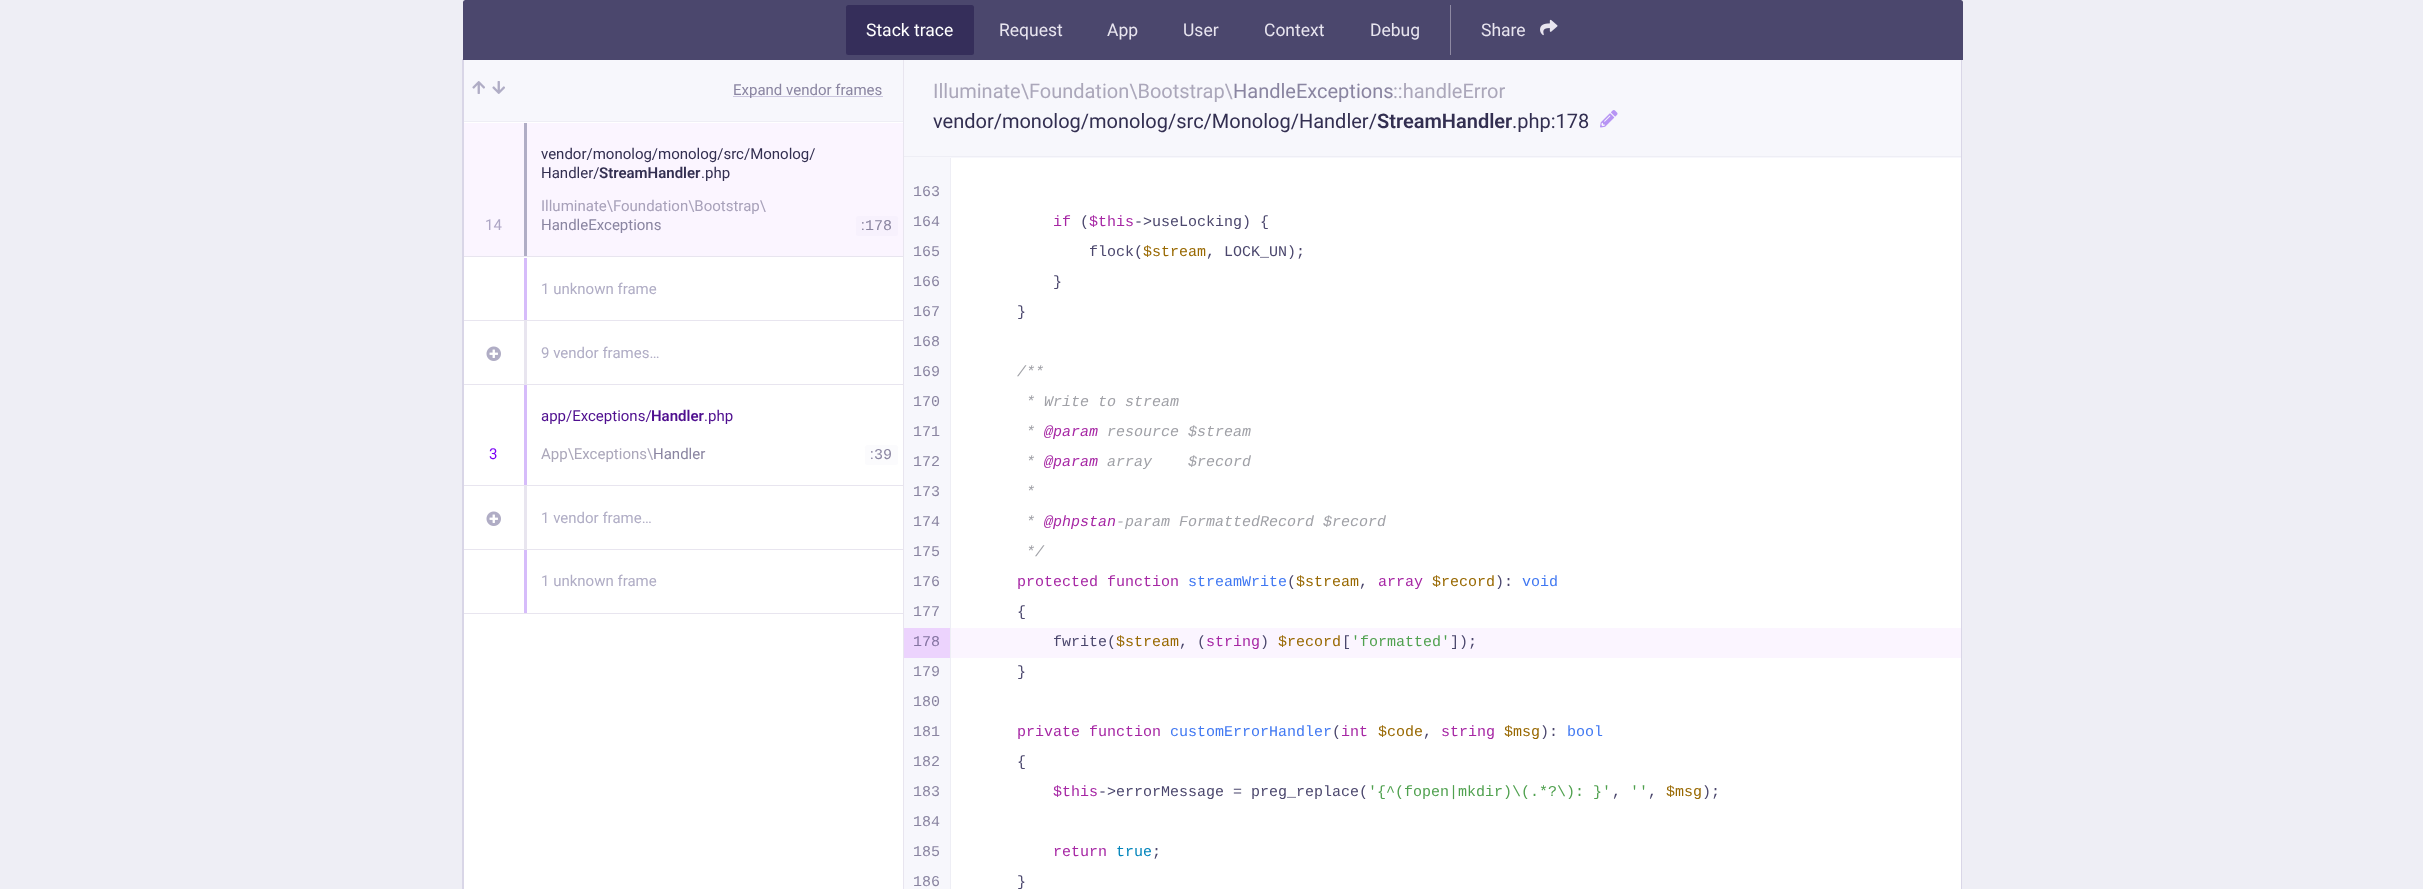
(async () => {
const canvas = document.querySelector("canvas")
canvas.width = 2423
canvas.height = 889
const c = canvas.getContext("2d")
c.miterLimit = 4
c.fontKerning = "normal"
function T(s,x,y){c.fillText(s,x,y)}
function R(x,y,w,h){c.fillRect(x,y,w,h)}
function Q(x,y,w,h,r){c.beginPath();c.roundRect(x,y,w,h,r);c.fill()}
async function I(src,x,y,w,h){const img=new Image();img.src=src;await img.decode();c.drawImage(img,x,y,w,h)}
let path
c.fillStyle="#eeeef5"
R(0,0,2423,889)
c.fillStyle="#d9d6e7"
path = new Path2D("M1962 59v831l-1-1v-830z")
c.fill(path)
path = new Path2D("M462 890v-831h2v830z")
c.fill(path)
c.fillStyle="#e8e5ef"
R(903,59,1,830)
c.fillStyle="#4b476d"
c.beginPath()
c.roundRect(463,0,1500,60,[2.5,2.5,0,0])
c.fill()
c.fillStyle="#352e5a"
Q(846,5,128,50,2.5)
c.font="17.5px Roboto"
c.fillStyle="#fff"
T("Stack trace",866,36)
c.fillStyle="#e8e5ef"
T("Request",999,36)
T("App",1107,36)
T("User",1183,36)
T("Context",1264,36)
T("Debug",1370,36)
c.fillStyle="#8e89a2"
R(1450,5,1,50)
c.fillStyle="#e8e5ef"
T("Share",1481,36)
await I("1.png",1540,19,18,17)
c.fillStyle="#fff"
R(464,122,439,767)
c.fillStyle="#f7f7fc"
R(464,60,439,61)
await I("2.png",472,81,13,13)
await I("3.png",492,81,13,13)
c.fillStyle="#cac6de"
R(733,96,150,1)
c.font="15px Roboto"
c.fillStyle="#8a85a1"
T("Expand vendor frames",733,95)
c.fillStyle="#e8e5ef"
R(464,256,439,1)
c.fillStyle="#fbf5ff"
R(464,123,439,133)
c.fillStyle="#aea6c5"
T("14",485,230)
c.fillStyle="#b0adc5"
R(524,123,3,133)
c.fillStyle="#332f51"
T("vendor/monolog/monolog/src/Monolog/",541,159)
T("Handler/",541,178)
c.font="600 15px Roboto"
T("StreamHandler",599,178)
c.font="15px Roboto"
T(".php",701,178)
c.fillStyle="#a8a1ba"
T("Illuminate\\Foundation\\Bootstrap\\",541,211)
c.fillStyle="#8a85a1"
T("HandleExceptions",541,230)
c.fillStyle="#f7f1fd"
Q(856,216,42,20,2.5)
c.fillStyle="#8a85a1"
T(":",861,230)
c.font="15px Liberation Mono"
T("178",865,230)
c.fillStyle="#e8e5ef"
R(464,320,439,1)
c.fillStyle="#d6bcfa"
R(524,258,3,62)
c.font="15px Roboto"
c.fillStyle="#b0adc5"
T("1 unknown frame",541,294)
c.fillStyle="#e8e5ef"
R(464,384,439,1)
await I("4.png",486,346,15,15)
R(524,321,3,63)
c.fillStyle="#b0adc5"
T("9 vendor frames…",541,358)
c.fillStyle="#e8e5ef"
R(464,485,439,1)
c.fillStyle="#7900f5"
T("3",489,459)
c.fillStyle="#d6bcfa"
R(524,385,3,100)
c.fillStyle="#4f0f8f"
T("app/Exceptions/",541,421)
c.font="600 15px Roboto"
T("Handler",651,421)
c.font="15px Roboto"
T(".php",704,421)
c.fillStyle="#aba7ba"
T("App\\Exceptions\\",541,459)
c.fillStyle="#8a85a1"
T("Handler",653,459)
c.fillStyle="#fbfbfd"
Q(865,445,33,20,2.5)
c.fillStyle="#8a85a1"
T(":",870,459)
c.font="15px Liberation Mono"
T("39",874,459)
c.fillStyle="#e8e5ef"
R(464,549,439,1)
await I("4.png",486,511,15,15)
R(524,486,3,63)
c.font="15px Roboto"
c.fillStyle="#b0adc5"
T("1 vendor frame…",541,523)
c.fillStyle="#e8e5ef"
R(464,613,439,1)
c.fillStyle="#d6bcfa"
R(524,550,3,63)
c.fillStyle="#b0adc5"
T("1 unknown frame",541,586)
c.fillStyle="#f7f7fc"
R(904,60,1057,98)
c.fillStyle="#eeeef5"
R(904,156,1057,1)
c.font="20px Roboto"
c.fillStyle="#aba7ba"
T("Illuminate\\Foundation\\Bootstrap\\",933,98)
c.fillStyle="#8a85a1"
T("HandleExceptions",1233,98)
c.fillStyle="#aba7ba"
T("::handleError",1393,98)
c.fillStyle="#332f51"
T("vendor/monolog/monolog/src/Monolog/Handler/",933,128)
c.font="600 20px Roboto"
T("StreamHandler",1377,128)
c.font="20px Roboto"
T(".php:178",1512,128)
await I("5.png",1600,110,18,18)
c.fillStyle="#fff"
R(951,158,1010,731)
c.fillStyle="#f7f7fc"
R(904,158,46,731)
c.font="15px Liberation Mono"
c.fillStyle="#8a85a1"
T("163",913,196)
T("164",913,226)
T("165",913,256)
T("166",913,286)
T("167",913,316)
T("168",913,346)
T("169",913,376)
T("170",913,406)
T("171",913,436)
T("172",913,466)
T("173",913,496)
T("174",913,526)
T("175",913,556)
T("176",913,586)
T("177",913,616)
c.fillStyle="#ecd3fd"
R(904,628,46,30)
c.fillStyle="#8574a2"
T("178",913,646)
c.fillStyle="#8a85a1"
T("179",913,676)
T("180",913,706)
T("181",913,736)
T("182",913,766)
T("183",913,796)
T("184",913,826)
T("185",913,856)
T("186",913,886)
c.fillStyle="#a626a4"
T("if",1053,226)
c.fillStyle="#4b476d"
T("(",1080,226)
c.fillStyle="#a626a4"
T("$this",1089,226)
c.fillStyle="#4b476d"
T("->useLocking) {",1134,226)
T("flock(",1089,256)
c.fillStyle="#986801"
T("$stream",1143,256)
c.fillStyle="#4b476d"
T(", LOCK_UN);",1206,256)
T("}",1053,286)
T("}",1017,316)
c.font="italic 15px Liberation Mono"
c.fillStyle="#a0a1a7"
T("/**",1017,376)
T("* Write to stream",1026,406)
T("*",1026,436)
c.fillStyle="#a626a4"
T("@param",1044,436)
c.fillStyle="#a0a1a7"
T("resource $stream",1107,436)
T("*",1026,466)
c.fillStyle="#a626a4"
T("@param",1044,466)
c.fillStyle="#a0a1a7"
T("array    $record",1107,466)
T("*",1026,496)
T("*",1026,526)
c.fillStyle="#a626a4"
T("@phpstan",1044,526)
c.fillStyle="#a0a1a7"
T("-param FormattedRecord $record",1116,526)
T("*/",1026,556)
c.font="15px Liberation Mono"
c.fillStyle="#a626a4"
T("protected function",1017,586)
c.fillStyle="#4078f2"
T("streamWrite",1188,586)
c.fillStyle="#4b476d"
T("(",1287,586)
c.fillStyle="#986801"
T("$stream",1296,586)
c.fillStyle="#4b476d"
T(",",1359,586)
c.fillStyle="#a626a4"
T("array",1378,586)
c.fillStyle="#986801"
T("$record",1432,586)
c.fillStyle="#4b476d"
T("):",1495,586)
c.fillStyle="#4078f2"
T("void",1522,586)
c.fillStyle="#4b476d"
T("{",1017,616)
c.fillStyle="#fbf5ff"
R(951,628,1010,30)
c.fillStyle="#4b476d"
T("fwrite(",1053,646)
c.fillStyle="#986801"
T("$stream",1116,646)
c.fillStyle="#4b476d"
T(", (",1179,646)
c.fillStyle="#a626a4"
T("string",1206,646)
c.fillStyle="#4b476d"
T(")",1260,646)
c.fillStyle="#986801"
T("$record",1278,646)
c.fillStyle="#4b476d"
T("[",1342,646)
c.fillStyle="#50a14f"
T("'formatted'",1351,646)
c.fillStyle="#4b476d"
T("]);",1450,646)
T("}",1017,676)
c.fillStyle="#a626a4"
T("private function",1017,736)
c.fillStyle="#4078f2"
T("customErrorHandler",1170,736)
c.fillStyle="#4b476d"
T("(",1332,736)
c.fillStyle="#a626a4"
T("int",1341,736)
c.fillStyle="#986801"
T("$code",1378,736)
c.fillStyle="#4b476d"
T(",",1423,736)
c.fillStyle="#a626a4"
T("string",1441,736)
c.fillStyle="#986801"
T("$msg",1504,736)
c.fillStyle="#4b476d"
T("):",1540,736)
c.fillStyle="#4078f2"
T("bool",1567,736)
c.fillStyle="#4b476d"
T("{",1017,766)
c.fillStyle="#a626a4"
T("$this",1053,796)
c.fillStyle="#4b476d"
T("->errorMessage = preg_replace(",1098,796)
c.fillStyle="#50a14f"
T("'{^(fopen|mkdir)\\(.*?\\): }'",1368,796)
c.fillStyle="#4b476d"
T(",",1612,796)
c.fillStyle="#50a14f"
T("''",1630,796)
c.fillStyle="#4b476d"
T(",",1648,796)
c.fillStyle="#986801"
T("$msg",1666,796)
c.fillStyle="#4b476d"
T(");",1702,796)
c.fillStyle="#a626a4"
T("return",1053,856)
c.fillStyle="#0184bb"
T("true",1116,856)
c.fillStyle="#4b476d"
T(";",1152,856)
T("}",1017,886)
})()
